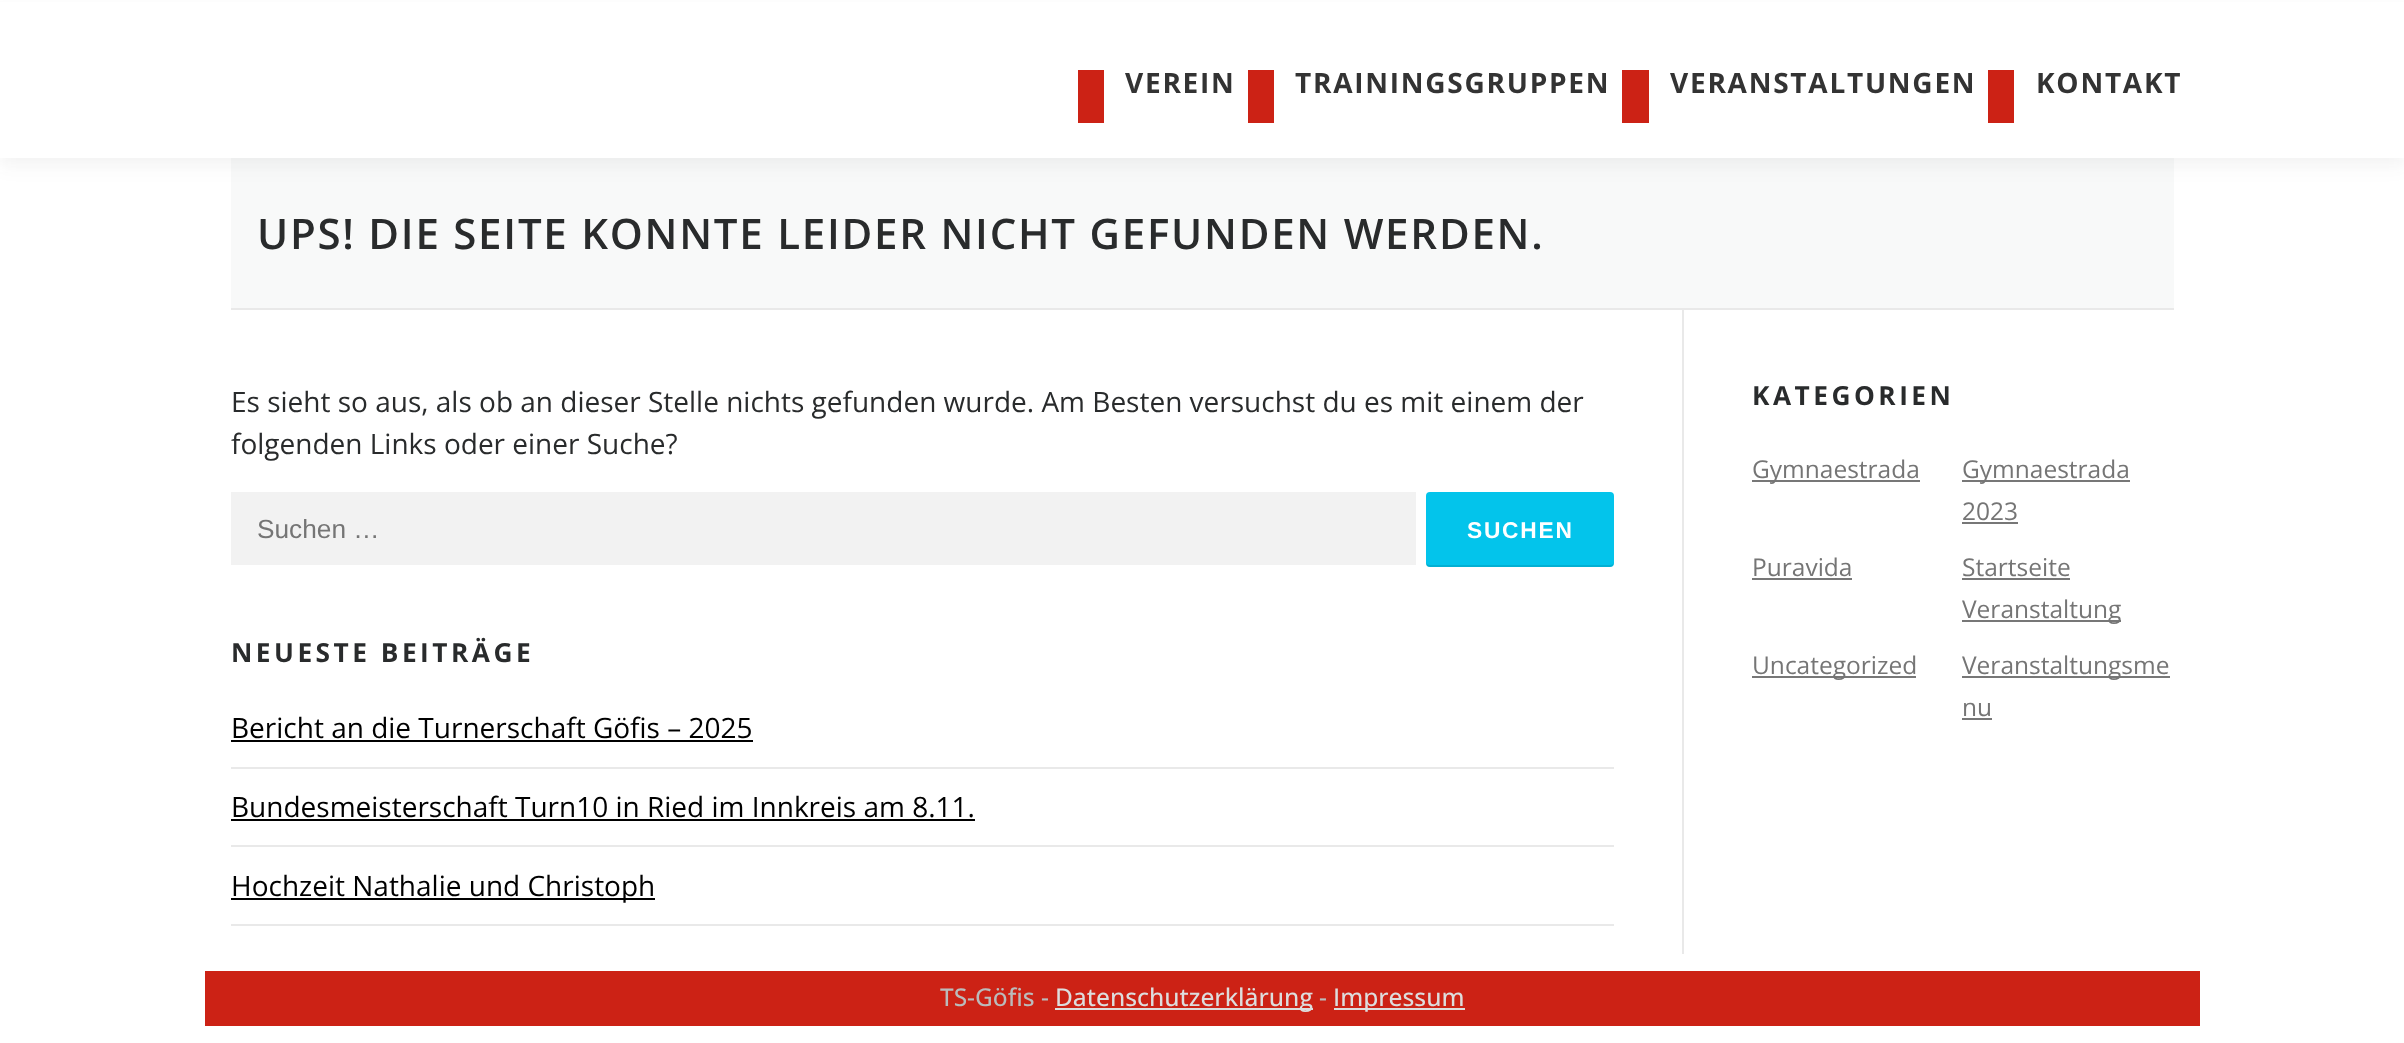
(async () => {
const canvas = document.querySelector("canvas")
canvas.width = 2404
canvas.height = 1043
const c = canvas.getContext("2d")
c.miterLimit = 4
c.fontKerning = "normal"
function T(s,x,y){c.fillText(s,x,y)}
function R(x,y,w,h){c.fillRect(x,y,w,h)}
function Q(x,y,w,h,r){c.beginPath();c.roundRect(x,y,w,h,r);c.fill()}
let path
c.fillStyle="#fff"
R(0,0,2404,1043)
c.fillStyle="#f8f9f9"
R(231,158,1943,150)
c.fillStyle="#3232320f"
c.filter="blur(9px)"
c.beginPath()
c.rect(0,9,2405,157)
c.fill()
c.filter="none"
c.fillStyle="#fff"
R(0,2,2404,156)
c.fillStyle="#cc2215"
R(1078,70,26,53)
c.letterSpacing="1.75px"
c.font="bold 28px Open Sans"
c.fillStyle="#333"
T("VEREIN",1125,93)
c.fillStyle="#cc2215"
R(1248,70,26,53)
c.fillStyle="#333"
T("TRAININGSGRUPPEN",1295,93)
c.fillStyle="#cc2215"
R(1622,70,27,53)
c.fillStyle="#333"
T("VERANSTALTUNGEN",1670,93)
c.fillStyle="#cc2215"
R(1988,70,26,53)
c.fillStyle="#333"
T("KONTAKT",2036,93)
c.fillStyle="#e9e9e9"
R(231,308,1943,2)
c.font="600 42px Open Sans"
c.fillStyle="#292b2c"
T("UPS! DIE SEITE KONNTE LEIDER NICHT GEFUNDEN WERDEN.",257,249)
c.fillStyle="#e9e9e9"
R(1682,310,2,644)
c.letterSpacing="0px"
c.font="28px Open Sans"
c.fillStyle="#292b2c"
T("Es sieht so aus, als ob an dieser Stelle nichts gefunden wurde. Am Besten versuchst du es mit einem der",231,412)
T("folgenden Links oder einer Suche?",231,454)
c.fillStyle="#f2f2f2"
R(231,492,1185,73)
c.font="26.25px Liberation Sans"
c.fillStyle="#757575"
T("Suchen …",257,538)
c.fillStyle="#03c4eb"
Q(1426,492,188,75,4)
c.fillStyle="#0000001a"
path = new Path2D("M1426 562c0 3 1 5 4 5h181c2-1 3-3 3-5c0 2-2 3-4 3h-180c-2 0-4-1-4-3z")
c.fill(path)
c.letterSpacing="1.75px"
c.font="bold 22.75px Liberation Sans"
c.fillStyle="#fff"
T("SUCHEN",1467,538)
c.letterSpacing="3.5px"
c.font="bold 26.25px Open Sans"
c.fillStyle="#292b2c"
T("NEUESTE BEITRÄGE",231,662)
c.fillStyle="#e9e9e9"
R(231,767,1383,2)
c.letterSpacing="0px"
c.font="28px Open Sans"
c.fillStyle="#000"
T("Bericht an die Turnerschaft Göfis – 2025",231,738)
R(231,740,522,2)
c.fillStyle="#e9e9e9"
R(231,845,1383,2)
c.fillStyle="#000"
T("Bundesmeisterschaft Turn10 in Ried im Innkreis am 8.11.",231,817)
R(231,819,744,2)
c.fillStyle="#e9e9e9"
R(231,924,1383,2)
c.fillStyle="#000"
R(231,898,424,2)
T("Hochzeit Nathalie und Christoph",231,896)
c.letterSpacing="3.5px"
c.font="bold 26.25px Open Sans"
c.fillStyle="#292b2c"
T("KATEGORIEN",1752,405)
c.fillStyle="#777"
R(1752,480,168,2)
c.letterSpacing="0px"
c.font="24.5px Open Sans"
c.fillStyle="#757575"
T("Gymnaestrada",1752,478)
c.fillStyle="#777"
R(1962,480,168,2)
c.fillStyle="#757575"
T("Gymnaestrada",1962,478)
T("2023",1962,520)
c.fillStyle="#777"
R(1962,522,56,2)
c.fillStyle="#757575"
T("Puravida",1752,576)
c.fillStyle="#777"
R(1752,578,100,2)
c.fillStyle="#757575"
T("Startseite",1962,576)
c.fillStyle="#777"
R(1962,578,108,2)
R(1962,620,159,2)
c.fillStyle="#757575"
T("Veranstaltung",1962,618)
c.fillStyle="#777"
R(1752,676,164,2)
c.fillStyle="#757575"
T("Uncategorized",1752,674)
c.fillStyle="#777"
R(1962,676,208,2)
c.fillStyle="#757575"
T("Veranstaltungsme",1962,674)
T("nu",1962,716)
c.fillStyle="#777"
R(1962,718,30,2)
c.fillStyle="#cc2215"
R(205,971,1995,55)
c.font="500 24.5px Open Sans"
c.fillStyle="#bbb"
T("TS-Göfis -",940,1006)
c.fillStyle="#ddd"
R(1055,1008,258,2)
T("Datenschutzerklärung",1055,1006)
c.fillStyle="#bbb"
T("-",1319,1006)
c.fillStyle="#ddd"
R(1334,1008,131,2)
T("Impressum",1333,1006)
})()
